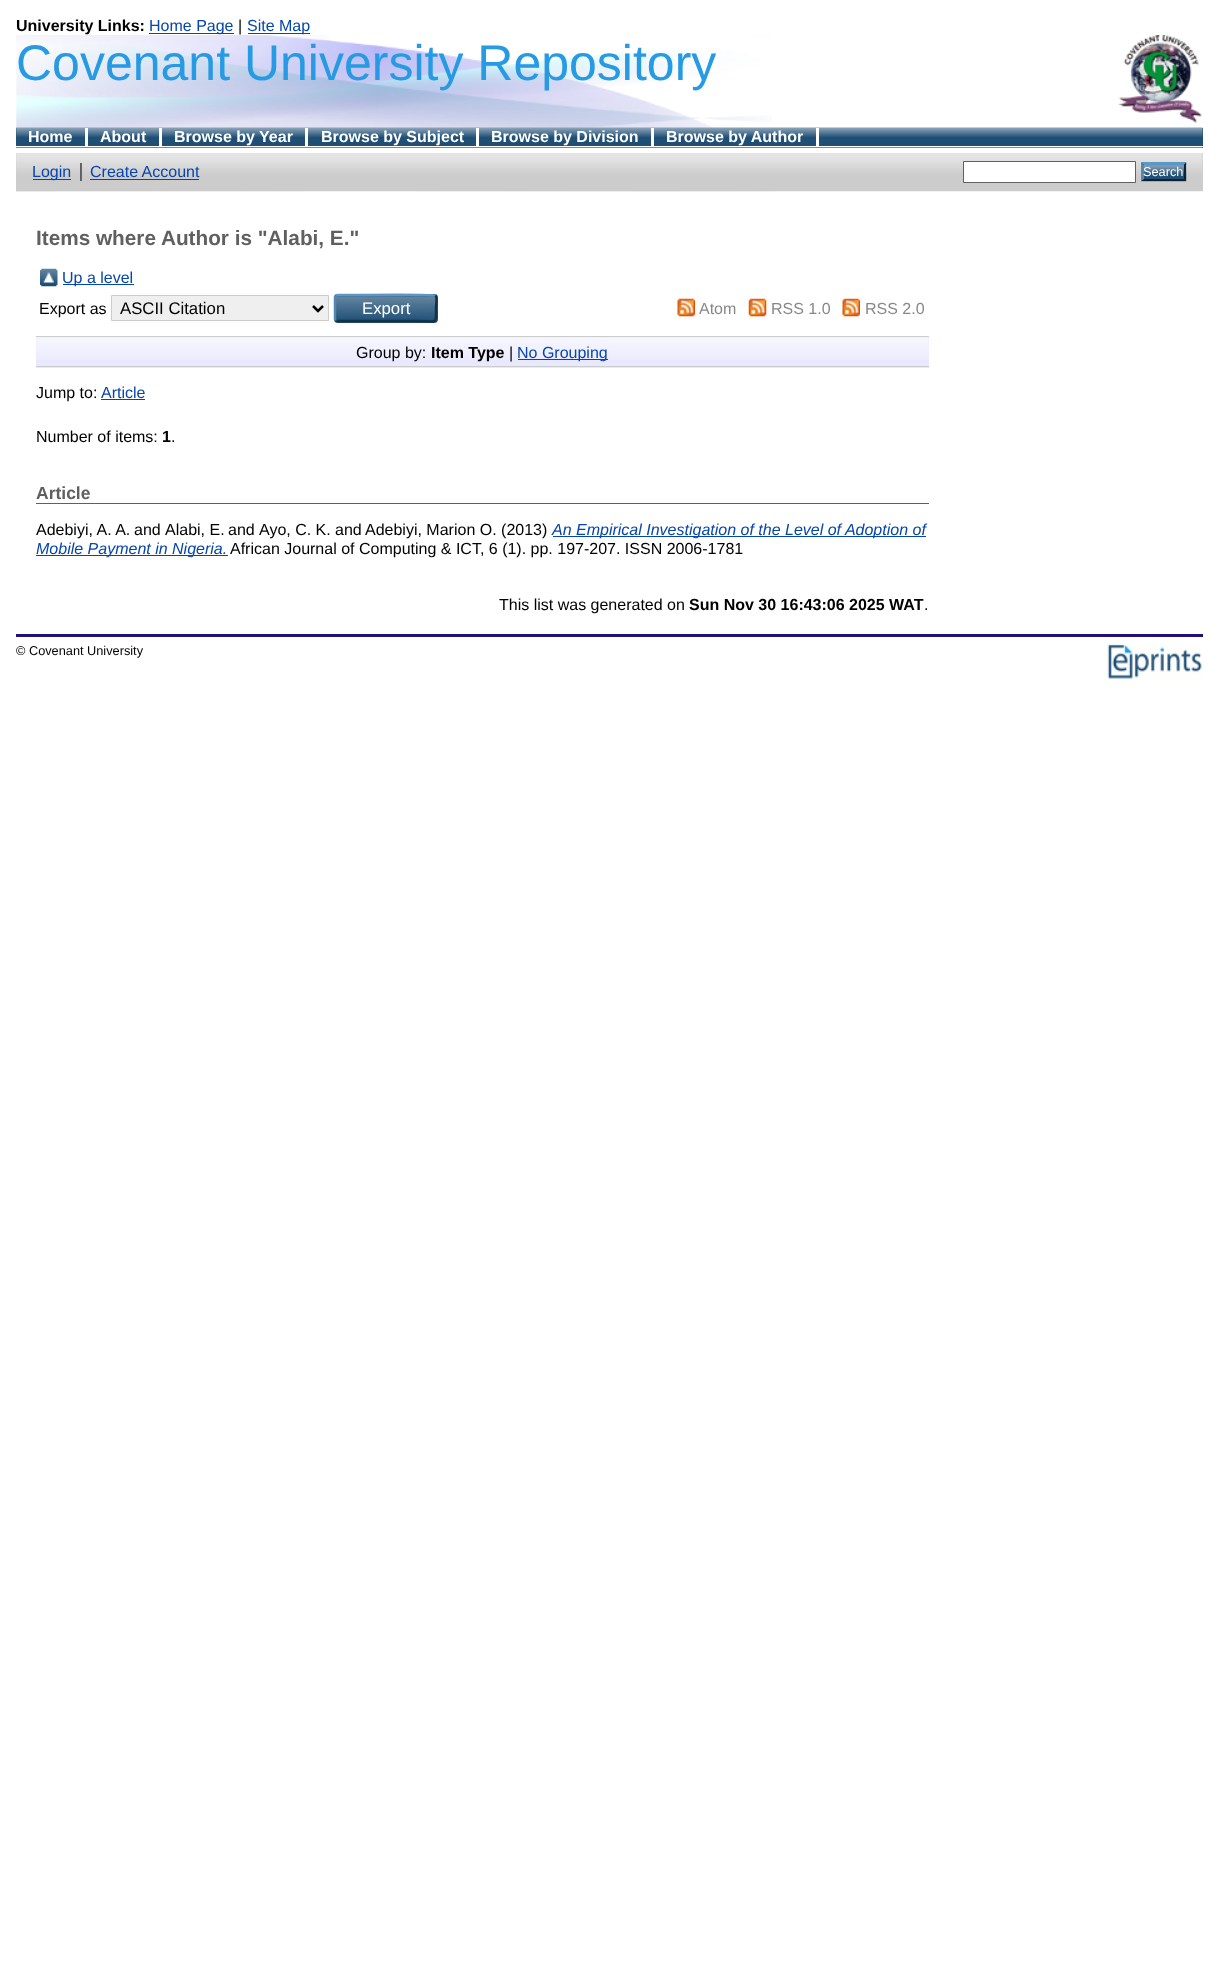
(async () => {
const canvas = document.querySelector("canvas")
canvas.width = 1218
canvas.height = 1966
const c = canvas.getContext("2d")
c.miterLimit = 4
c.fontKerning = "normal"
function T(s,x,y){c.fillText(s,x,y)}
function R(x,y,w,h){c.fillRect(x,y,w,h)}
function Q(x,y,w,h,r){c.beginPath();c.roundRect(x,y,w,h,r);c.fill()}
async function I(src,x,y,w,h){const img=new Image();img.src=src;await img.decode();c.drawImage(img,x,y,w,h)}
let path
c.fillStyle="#fff"
R(0,0,1218,1966)
await I("1.png",16,35,756,157)
c.font="bold 16px Liberation Sans"
c.fillStyle="#000"
T("University Links:",16,31)
c.fillStyle="#0645ad"
R(149,33,85,1)
c.font="16px Liberation Sans"
T("Home Page",149,31)
c.fillStyle="#000"
T("|",238,31)
c.fillStyle="#0645ad"
R(248,33,62,1)
T("Site Map",247,31)
c.font="50px Liberation Sans"
c.fillStyle="#269ae3"
T("Covenant University Repository",16,80)
await I("2.png",1118,35,84,88)
c.fillStyle="#204f76"
R(16,128,1187,20)
await I("3.png",16,127,1187,10)
c.fillStyle="#fff"
R(16,146,1187,1)
c.font="bold 16px Liberation Sans"
T("Home",28,142)
R(85,128,3,18)
T("About",100,142)
R(159,128,3,18)
T("Browse by Year",174,142)
R(305,128,3,18)
T("Browse by Subject",321,142)
R(476,128,3,18)
T("Browse by Division",491,142)
R(651,128,3,18)
T("Browse by Author",666,142)
R(816,128,3,18)
c.fillStyle="#ccc"
R(16,153,1187,38)
await I("4.png",16,147,1187,45)
c.fillStyle="#fff"
R(16,148,1187,5)
c.fillStyle="#0645ad"
R(33,179,38,1)
c.font="16px Liberation Sans"
T("Login",32,177)
c.fillStyle="#606060"
R(80,163,1,18)
c.fillStyle="#0645ad"
T("Create Account",90,177)
c.fillStyle="#666"
R(81,163,1,18)
c.fillStyle="#0645ad"
R(90,179,109,1)
c.fillStyle="#fff"
c.beginPath()
c.rect(963.5,161.5,172,21)
c.fill()
c.strokeStyle="#606060"
c.stroke()
await I("5.png",1141,162,46,20)
c.fillStyle="#5b97c7"
path = new Path2D("M1141 162h45l-2 3h-40z")
c.fill(path)
c.fillStyle="#0d2131"
path = new Path2D("M1186 162.5v18.5l-2-2v-14z")
c.fill(path)
path = new Path2D("M1186 181h-45l3-2h40z")
c.fill(path)
c.fillStyle="#5287b3"
path = new Path2D("M1141 181v-18.5l3 2.5v14z")
c.fill(path)
c.font="12.75px Liberation Sans"
c.fillStyle="#fff"
T("Search",1143,176)
c.font="bold 20.75px Liberation Sans"
c.fillStyle="#606060"
T("Items where Author is \"Alabi, E.\"",36,245)
await I("6.png",40,268,18,19)
c.fillStyle="#0645ad"
R(63,284,71,1)
c.font="16px Liberation Sans"
T("Up a level",62,283)
c.fillStyle="#000"
T("Export as",39,314)
c.fillStyle="#efefef"
c.beginPath()
c.rect(111.5,295.5,217,25)
c.fill()
c.strokeStyle="#ccc"
c.stroke()
path = new Path2D("M313 306l5 5l5-5")
c.strokeStyle="#000"
c.lineWidth=2.5
c.stroke(path)
c.font="16.75px Liberation Sans"
c.fillStyle="#000"
T("ASCII Citation",120,314)
c.fillStyle="#1f4f76"
Q(334,294,104,29,4)
await I("7.png",334,296,104,24)
path = new Path2D("M335.5 295.5l2-.5h16c8.5 0 79.5-1 81.5 .5h.5")
c.strokeStyle="#5b97c7"
c.stroke(path)
path = new Path2D("M435.5 295.5c2 2 .5 10 .5 12.5c0 17.5 2 13-18.5 13h-80l-2-.5")
c.strokeStyle="#13324a"
c.stroke(path)
path = new Path2D("M335.5 320.5c0-.5-.5-1-.5-1.5v-21.5c0-.5 .5-1.5 .5-2")
c.strokeStyle="#5287b3"
c.stroke(path)
c.fillStyle="#fff"
T("Export",362,314)
await I("8.png",677,298,18,19)
c.font="16px Liberation Sans"
c.fillStyle="#888"
T("Atom",699,314)
await I("9.png",748,298,19,19)
T("RSS 1.0",771,314)
await I("8.png",842,298,18,19)
T("RSS 2.0",865,314)
c.fillStyle="#e8e8ff"
R(36,337,893,31)
await I("10.png",36,337,893,23)
c.fillStyle="#ccc"
R(36,336,893,1)
R(36,366,893,1)
c.fillStyle="#000"
T("Group by:",356,358)
c.font="bold 16px Liberation Sans"
T("Item Type",431,358)
c.font="16px Liberation Sans"
T("|",509,358)
c.fillStyle="#0645ad"
R(518,359,90,1)
T("No Grouping",517,358)
c.fillStyle="#000"
T("Jump to:",36,398)
c.fillStyle="#0645ad"
T("Article",101,398)
R(101,399,44,1)
c.fillStyle="#000"
T("Number of items:",36,442)
c.font="bold 16px Liberation Sans"
T("1",162,442)
c.font="16px Liberation Sans"
T(".",171,442)
c.fillStyle="#606060"
R(36,503,893,1)
c.font="bold 17.5px Liberation Sans"
T("Article",36,499)
c.font="16px Liberation Sans"
c.fillStyle="#000"
T("Adebiyi, A. A.",36,535)
T("and",134,535)
T("Alabi, E.",165,535)
T("and",228,535)
T("Ayo, C. K.",259,535)
T("and",335,535)
T("Adebiyi, Marion O. (2013)",365,535)
c.fillStyle="#0645ad"
R(553,536,373,1)
c.font="italic 16px Liberation Sans"
T("An Empirical Investigation of the Level of Adoption of",552,535)
R(36,555,192,1)
T("Mobile Payment in Nigeria.",36,554)
c.font="16px Liberation Sans"
c.fillStyle="#000"
T("African Journal of Computing & ICT, 6 (1). pp. 197-207. ISSN 2006-1781",230,554)
T("This list was generated on",499,610)
c.font="bold 16px Liberation Sans"
T("Sun Nov 30 16:43:06 2025 WAT",689,610)
c.font="16px Liberation Sans"
T(".",924,610)
c.fillStyle="#240f78"
R(16,634,1187,3)
c.font="12.75px Liberation Sans"
c.fillStyle="#000"
T("© Covenant University",16,655)
await I("11.png",1106,644,96,36)
})()
